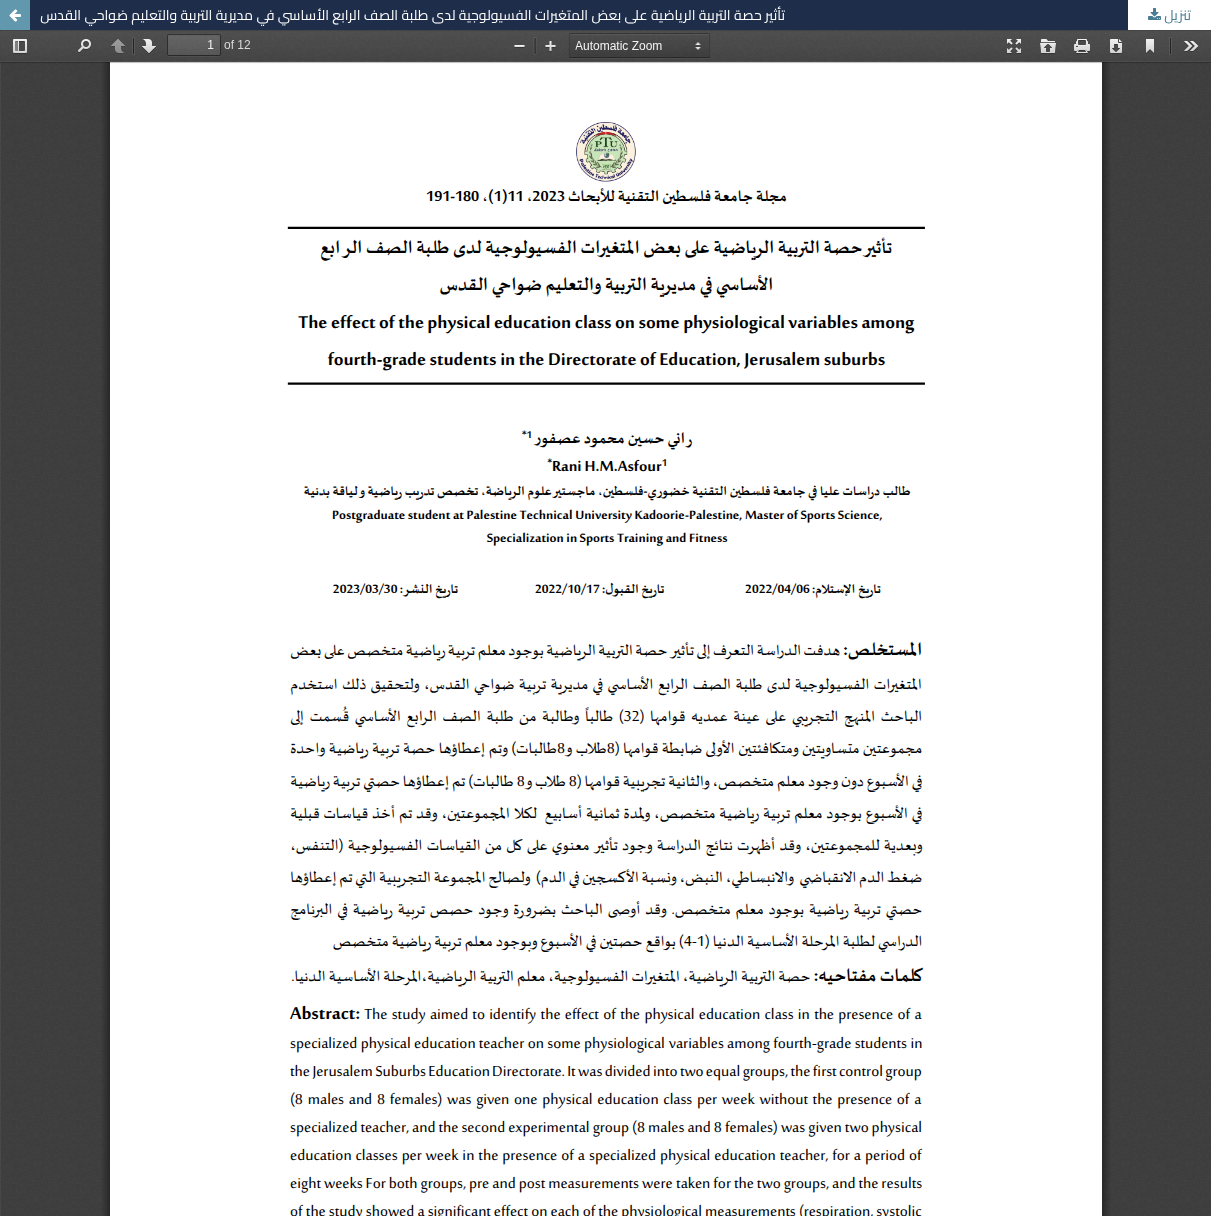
(async () => {
const canvas = document.querySelector("canvas")
canvas.width = 1211
canvas.height = 1216
const c = canvas.getContext("2d")
c.miterLimit = 4
c.fontKerning = "normal"
function T(s,x,y){c.fillText(s,x,y)}
function R(x,y,w,h){c.fillRect(x,y,w,h)}
async function I(src,x,y,w,h){const img=new Image();img.src=src;await img.decode();c.drawImage(img,x,y,w,h)}
c.fillStyle="#fff"
R(0,0,1211,1216)
c.fillStyle="#1e2d49"
R(30,0,1098,30)
c.direction="rtl"
c.font="14px Cairo"
c.fillStyle="#4b7d92"
T("تنزيل",1191,20)
await I("1.png",1148,8,13,12)
c.wordSpacing="0.25px"
c.fillStyle="#fff"
T("تأثير حصة التربية الرياضية على بعض المتغيرات الفسيولوجية لدى طلبة الصف الرابع الأساسي في مديرية التربية والتعليم ضواحي القدس",785,20)
c.fillStyle="#6298ae"
R(0,0,30,30)
await I("2.png",9,9,12,13)
await I("3.png",0,30,1211,1186)
})()
